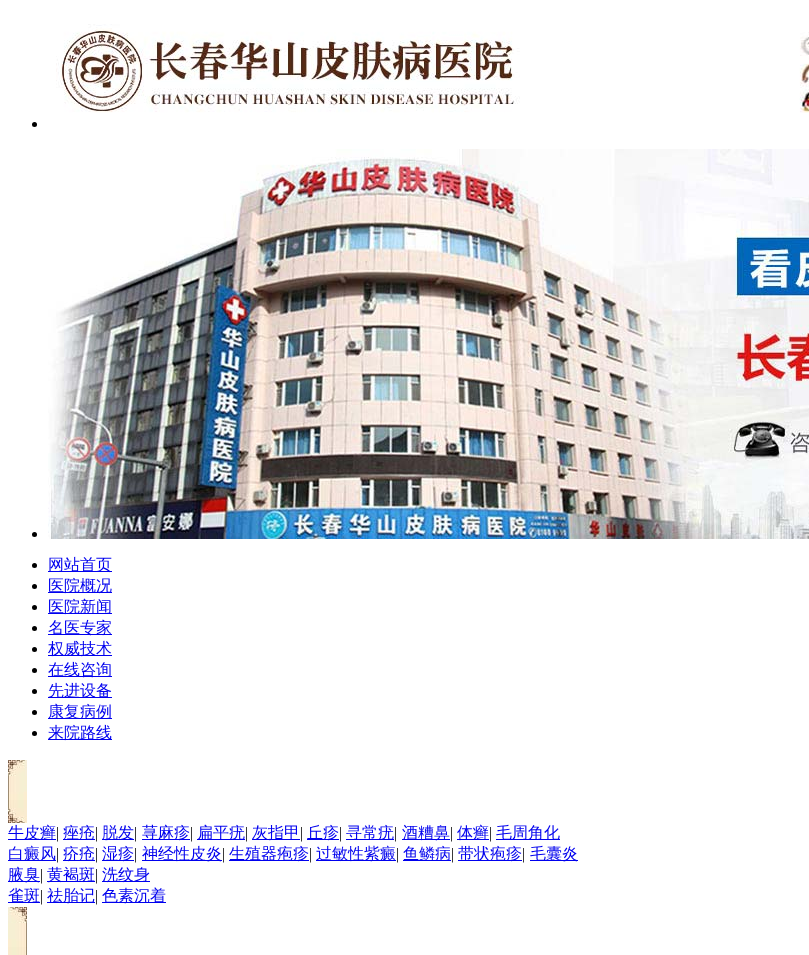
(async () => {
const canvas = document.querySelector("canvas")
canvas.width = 809
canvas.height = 955
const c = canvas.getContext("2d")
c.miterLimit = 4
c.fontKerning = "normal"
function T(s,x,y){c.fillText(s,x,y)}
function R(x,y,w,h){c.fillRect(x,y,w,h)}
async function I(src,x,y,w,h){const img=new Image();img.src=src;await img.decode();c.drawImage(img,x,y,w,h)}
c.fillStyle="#fff"
R(0,0,809,955)
await I("1.png",56,24,753,89)
c.fillStyle="#000"
c.beginPath()
c.arc(34.5,124.5,2.5,0,7)
c.fill()
c.beginPath()
c.arc(34.5,534.5,2.5,0,7)
c.fill()
await I("2.png",48,149,761,390)
c.beginPath()
c.arc(34.5,565.5,2.5,0,7)
c.fill()
c.fillStyle="#00e"
R(48,571,64,1)
c.font="500 16px WenQuanYi Zen Hei"
T("网站首页",48,570)
c.fillStyle="#000"
c.beginPath()
c.arc(34.5,586.5,2.5,0,7)
c.fill()
c.fillStyle="#00e"
R(48,592,64,1)
T("医院概况",48,591)
c.fillStyle="#000"
c.beginPath()
c.arc(34.5,607.5,2.5,0,7)
c.fill()
c.fillStyle="#00e"
R(48,613,64,1)
T("医院新闻",48,612)
c.fillStyle="#000"
c.beginPath()
c.arc(34.5,628.5,2.5,0,7)
c.fill()
c.fillStyle="#00e"
R(48,634,64,1)
T("名医专家",48,633)
c.fillStyle="#000"
c.beginPath()
c.arc(34.5,649.5,2.5,0,7)
c.fill()
c.fillStyle="#00e"
R(48,655,64,1)
T("权威技术",48,654)
c.fillStyle="#000"
c.beginPath()
c.arc(34.5,670.5,2.5,0,7)
c.fill()
c.fillStyle="#00e"
R(48,676,64,1)
T("在线咨询",48,675)
c.fillStyle="#000"
c.beginPath()
c.arc(34.5,691.5,2.5,0,7)
c.fill()
c.fillStyle="#00e"
R(48,697,64,1)
T("先进设备",48,696)
c.fillStyle="#000"
c.beginPath()
c.arc(34.5,712.5,2.5,0,7)
c.fill()
c.fillStyle="#00e"
R(48,718,64,1)
T("康复病例",48,717)
c.fillStyle="#000"
c.beginPath()
c.arc(34.5,733.5,2.5,0,7)
c.fill()
c.fillStyle="#00e"
R(48,739,64,1)
T("来院路线",48,738)
await I("3.png",8,760,19,63)
R(8,839,48,1)
T("牛皮癣",8,838)
c.font="16px Liberation Serif"
c.fillStyle="#000"
T("|",56,838)
c.fillStyle="#00e"
R(63,839,32,1)
c.font="500 16px WenQuanYi Zen Hei"
T("痤疮",63,838)
c.font="16px Liberation Serif"
c.fillStyle="#000"
T("|",95,838)
c.fillStyle="#00e"
R(102,839,32,1)
c.font="500 16px WenQuanYi Zen Hei"
T("脱发",102,838)
c.font="16px Liberation Serif"
c.fillStyle="#000"
T("|",134,838)
c.fillStyle="#00e"
R(142,839,48,1)
c.font="500 16px WenQuanYi Zen Hei"
T("荨麻疹",142,838)
c.font="16px Liberation Serif"
c.fillStyle="#000"
T("|",190,838)
c.fillStyle="#00e"
R(197,839,48,1)
c.font="500 16px WenQuanYi Zen Hei"
T("扁平疣",197,838)
c.font="16px Liberation Serif"
c.fillStyle="#000"
T("|",245,838)
c.fillStyle="#00e"
R(252,839,48,1)
c.font="500 16px WenQuanYi Zen Hei"
T("灰指甲",252,838)
c.font="16px Liberation Serif"
c.fillStyle="#000"
T("|",300,838)
c.fillStyle="#00e"
R(307,839,32,1)
c.font="500 16px WenQuanYi Zen Hei"
T("丘疹",307,838)
c.font="16px Liberation Serif"
c.fillStyle="#000"
T("|",339,838)
c.fillStyle="#00e"
R(346,839,48,1)
c.font="500 16px WenQuanYi Zen Hei"
T("寻常疣",346,838)
c.font="16px Liberation Serif"
c.fillStyle="#000"
T("|",394,838)
c.fillStyle="#00e"
R(402,839,48,1)
c.font="500 16px WenQuanYi Zen Hei"
T("酒糟鼻",402,838)
c.font="16px Liberation Serif"
c.fillStyle="#000"
T("|",450,838)
c.fillStyle="#00e"
R(457,839,32,1)
c.font="500 16px WenQuanYi Zen Hei"
T("体癣",457,838)
c.font="16px Liberation Serif"
c.fillStyle="#000"
T("|",489,838)
c.fillStyle="#00e"
R(496,839,64,1)
c.font="500 16px WenQuanYi Zen Hei"
T("毛周角化",496,838)
R(8,860,48,1)
T("白癜风",8,859)
c.font="16px Liberation Serif"
c.fillStyle="#000"
T("|",56,859)
c.fillStyle="#00e"
R(63,860,32,1)
c.font="500 16px WenQuanYi Zen Hei"
T("疥疮",63,859)
c.font="16px Liberation Serif"
c.fillStyle="#000"
T("|",95,859)
c.fillStyle="#00e"
R(102,860,32,1)
c.font="500 16px WenQuanYi Zen Hei"
T("湿疹",102,859)
c.font="16px Liberation Serif"
c.fillStyle="#000"
T("|",134,859)
c.fillStyle="#00e"
R(142,860,80,1)
c.font="500 16px WenQuanYi Zen Hei"
T("神经性皮炎",142,859)
c.font="16px Liberation Serif"
c.fillStyle="#000"
T("|",222,859)
c.fillStyle="#00e"
R(229,860,80,1)
c.font="500 16px WenQuanYi Zen Hei"
T("生殖器疱疹",229,859)
c.font="16px Liberation Serif"
c.fillStyle="#000"
T("|",309,859)
c.fillStyle="#00e"
R(316,860,80,1)
c.font="500 16px WenQuanYi Zen Hei"
T("过敏性紫癜",316,859)
c.font="16px Liberation Serif"
c.fillStyle="#000"
T("|",396,859)
c.fillStyle="#00e"
R(403,860,48,1)
c.font="500 16px WenQuanYi Zen Hei"
T("鱼鳞病",403,859)
c.font="16px Liberation Serif"
c.fillStyle="#000"
T("|",451,859)
c.fillStyle="#00e"
R(458,860,64,1)
c.font="500 16px WenQuanYi Zen Hei"
T("带状疱疹",458,859)
c.font="16px Liberation Serif"
c.fillStyle="#000"
T("|",522,859)
c.fillStyle="#00e"
R(530,860,48,1)
c.font="500 16px WenQuanYi Zen Hei"
T("毛囊炎",530,859)
R(8,881,32,1)
T("腋臭",8,880)
c.font="16px Liberation Serif"
c.fillStyle="#000"
T("|",40,880)
c.fillStyle="#00e"
R(47,881,48,1)
c.font="500 16px WenQuanYi Zen Hei"
T("黄褐斑",47,880)
c.font="16px Liberation Serif"
c.fillStyle="#000"
T("|",95,880)
c.fillStyle="#00e"
R(102,881,48,1)
c.font="500 16px WenQuanYi Zen Hei"
T("洗纹身",102,880)
R(8,902,32,1)
T("雀斑",8,901)
c.font="16px Liberation Serif"
c.fillStyle="#000"
T("|",40,901)
c.fillStyle="#00e"
R(47,902,48,1)
c.font="500 16px WenQuanYi Zen Hei"
T("祛胎记",47,901)
c.font="16px Liberation Serif"
c.fillStyle="#000"
T("|",95,901)
c.fillStyle="#00e"
R(102,902,64,1)
c.font="500 16px WenQuanYi Zen Hei"
T("色素沉着",102,901)
await I("4.png",8,907,19,48)
})()
